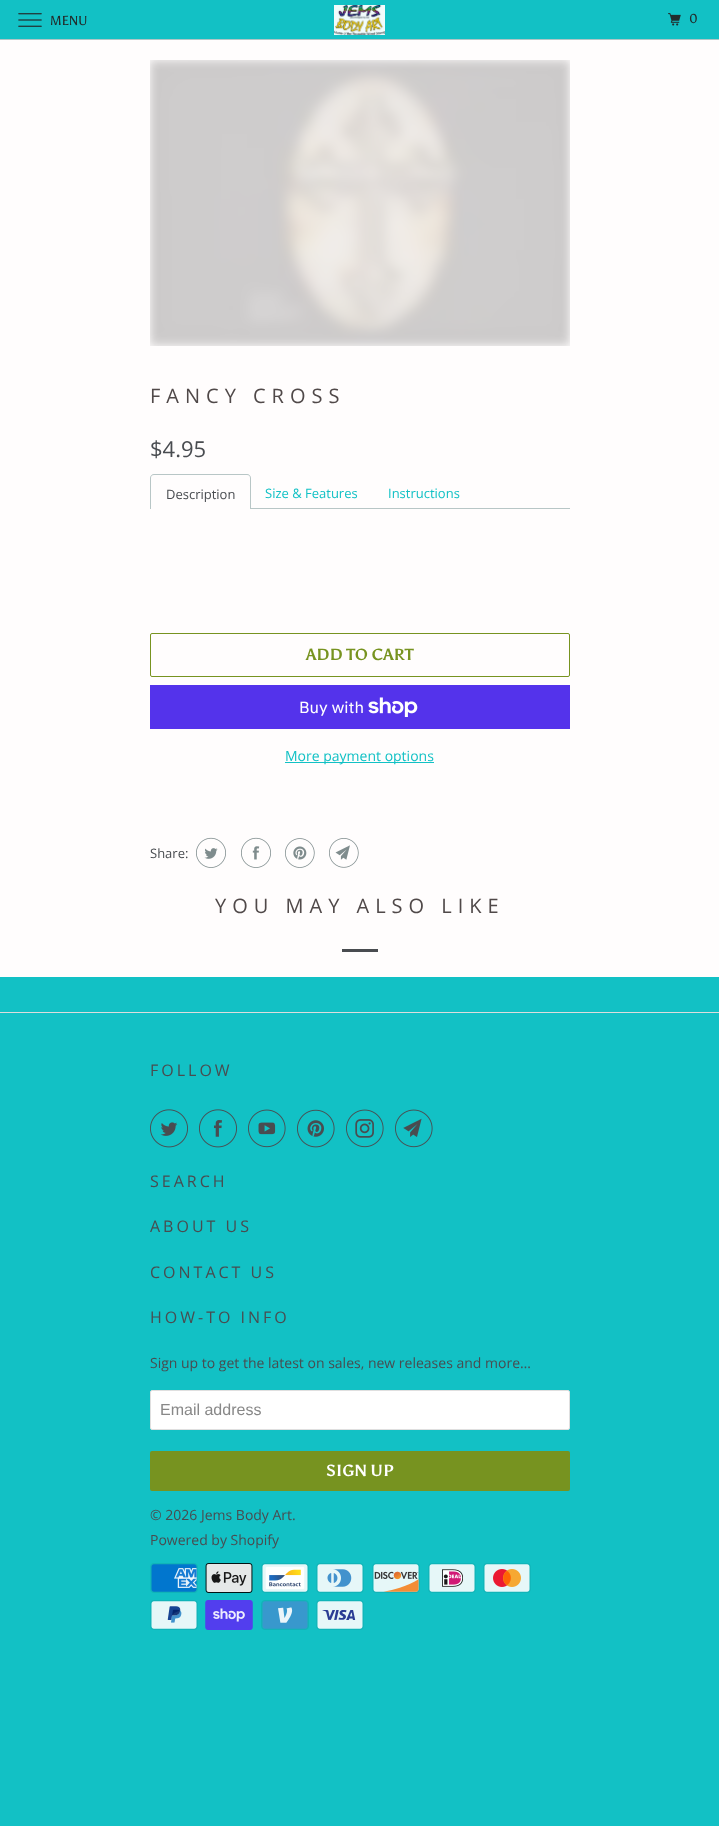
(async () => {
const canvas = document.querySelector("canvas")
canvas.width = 719
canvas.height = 1826
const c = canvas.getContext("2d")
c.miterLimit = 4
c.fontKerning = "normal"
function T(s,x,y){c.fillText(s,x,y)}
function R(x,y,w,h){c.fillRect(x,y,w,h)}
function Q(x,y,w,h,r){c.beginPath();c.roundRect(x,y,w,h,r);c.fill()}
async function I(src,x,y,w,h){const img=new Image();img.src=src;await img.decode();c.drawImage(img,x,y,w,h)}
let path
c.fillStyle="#12c1c5"
R(0,0,719,1826)
c.fillStyle="#b0c6c6"
R(0,39,719,1)
await I("1.png",18,13,24,14)
c.font="13px Asul"
c.fillStyle="#222c2c"
T("MENU",50,25)
await I("2.png",334,5,51,30)
await I("3.png",668,13,13,13)
T("0",689,23)
c.fillStyle="#fffdfd"
R(0,40,719,937)
await I("4.png",150,60,420,286)
c.letterSpacing="6px"
c.font="20px Open Sans"
c.fillStyle="#504949"
T("FANCY CROSS",150,403)
c.letterSpacing="0px"
c.font="22px Open Sans"
c.fillStyle="#494c50"
T("$4.95",150,457)
c.fillStyle="#b8c6c6"
R(251,508,319,1)
path = new Path2D("M154 474h93c2 0 4 2 4 4v31h-101v-31c0-2 2-4 4-4zm0 1h93c2 0 3 1 3 3v31h-99v-31c0-2 1-3 3-3z")
c.fill(path,"evenodd")
c.font="13px Open Sans"
c.fillStyle="#494c50"
T("Description",166,499)
c.fillStyle="#12c1c5"
T("Size & Features",265,498)
T("Instructions",388,498)
c.beginPath()
c.roundRect(150.5,633.5,419,43,1.5)
c.strokeStyle="#779320"
c.stroke()
c.font="bold 16px Asul"
c.fillStyle="#779320"
T("ADD TO CART",306,660)
c.fillStyle="#5433eb"
R(150,685,420,44)
c.font="16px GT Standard"
c.fillStyle="#fff"
T("Buy with",299,713)
await I("5.png",368,697,50,20)
c.fillStyle="#12c1c5"
R(285,762,149,1)
c.font="14px Open Sans"
T("More payment options",285,761)
c.font="13px Open Sans"
c.fillStyle="#494c50"
T("Share:",150,858)
await I("6.png",196,837,30,31)
await I("7.png",241,837,30,31)
await I("8.png",285,838,30,30)
await I("9.png",329,838,30,30)
c.letterSpacing="6px"
c.font="20px Open Sans"
c.fillStyle="#504949"
T("YOU MAY ALSO LIKE",215,913)
c.fillStyle="#494c50"
R(342,949,36,3)
c.fillStyle="#ddd"
R(0,1012,719,1)
c.letterSpacing="3px"
c.font="16px Open Sans"
c.fillStyle="#494c50"
T("FOLLOW",150,1076)
await I("10.png",150,1109,38,39)
await I("11.png",199,1109,38,39)
await I("12.png",248,1109,38,39)
await I("13.png",297,1109,38,39)
await I("14.png",346,1109,38,39)
await I("15.png",395,1109,38,39)
T("SEARCH",150,1187)
T("ABOUT US",150,1232)
T("CONTACT US",150,1278)
T("HOW-TO INFO",150,1323)
c.letterSpacing="0px"
c.font="14px Open Sans"
T("Sign up to get the latest on sales, new releases and more…",150,1368)
c.fillStyle="#fff"
c.beginPath()
c.roundRect(150.5,1390.5,419,39,1.5)
c.fill()
c.strokeStyle="#dfdfdf"
c.stroke()
c.font="16px Liberation Sans"
c.fillStyle="#888"
T("Email address",160,1415)
c.fillStyle="#779320"
Q(150,1451,420,40,2)
c.font="bold 16px Asul"
c.fillStyle="#fff"
T("SIGN UP",326,1476)
c.font="14px Open Sans"
c.fillStyle="#494c50"
T("© 2026 Jems Body Art.",150,1520)
T("Powered by Shopify",150,1545)
await I("16.png",150,1563,48,30)
await I("17.png",205,1563,48,30)
await I("18.png",261,1563,48,30)
await I("19.png",316,1563,48,30)
await I("20.png",372,1563,48,30)
await I("21.png",428,1563,48,30)
await I("22.png",483,1563,48,30)
await I("23.png",150,1600,48,30)
await I("24.png",205,1600,48,30)
await I("25.png",261,1600,48,30)
await I("26.png",316,1600,48,30)
})()
